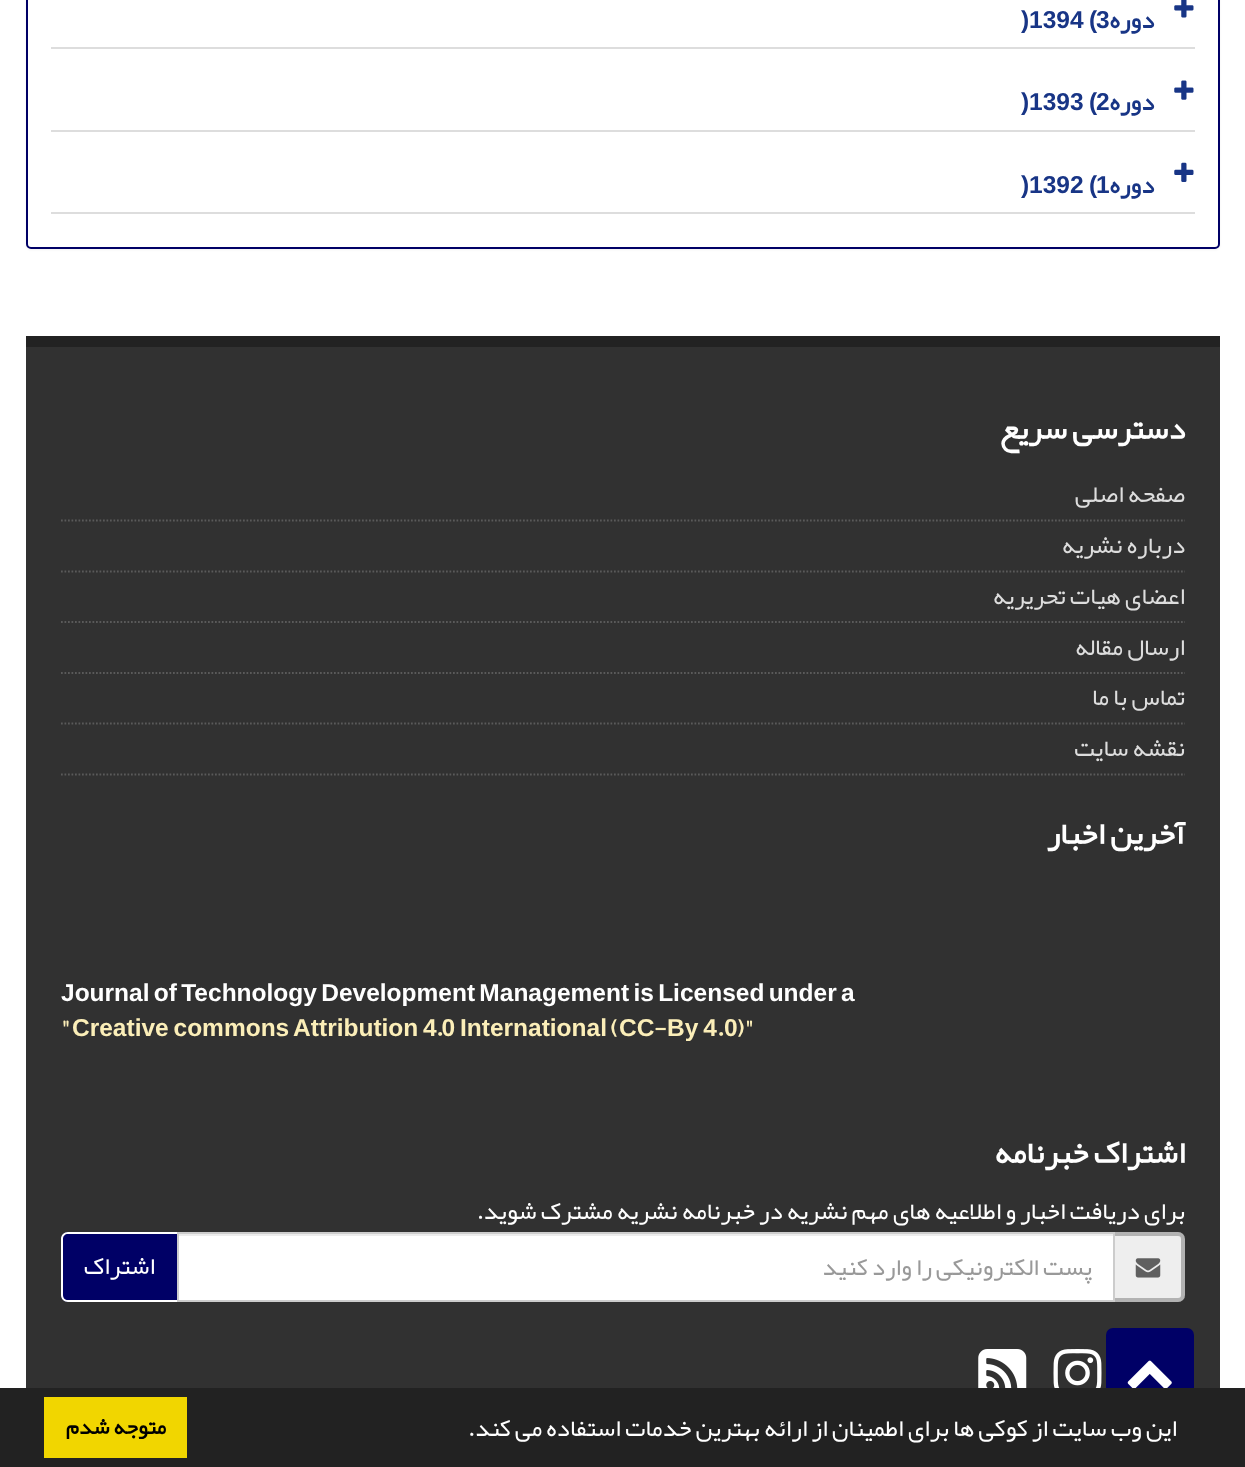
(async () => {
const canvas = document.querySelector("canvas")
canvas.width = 1245
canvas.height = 1467
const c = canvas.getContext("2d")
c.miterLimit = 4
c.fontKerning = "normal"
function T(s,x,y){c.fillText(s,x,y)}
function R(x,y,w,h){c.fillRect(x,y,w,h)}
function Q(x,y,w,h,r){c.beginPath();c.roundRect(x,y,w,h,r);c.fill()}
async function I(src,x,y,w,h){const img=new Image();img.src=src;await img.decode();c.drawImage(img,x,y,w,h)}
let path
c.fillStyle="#fff"
R(0,0,1245,1467)
c.fillStyle="#0000000d"
c.filter="blur(1px)"
c.beginPath()
c.roundRect(26,-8,1194,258,5)
c.fill()
c.filter="none"
c.fillStyle="#fff"
c.beginPath()
c.roundRect(27,-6,1192,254,4)
c.fill()
c.strokeStyle="#006"
c.lineWidth=2
c.stroke()
c.fillStyle="#ddd"
R(51,47,1144,2)
await I("1.png",1174,0,20,18)
c.direction="rtl"
c.font="bold 24.5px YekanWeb"
c.fillStyle="#183586"
T("دوره",1154,28)
c.direction="ltr"
c.font="bold 24.5px Liberation Sans"
T("(",1089,28)
T("3",1096,28)
T("1394",1029,28)
T(")",1021,28)
c.fillStyle="#ddd"
R(51,130,1144,2)
await I("2.png",1174,80,20,20)
c.direction="rtl"
c.font="bold 24.5px YekanWeb"
c.fillStyle="#183586"
T("دوره",1154,110)
c.direction="ltr"
c.font="bold 24.5px Liberation Sans"
T("(",1089,110)
T("2",1096,110)
T("1393",1029,110)
T(")",1021,110)
c.fillStyle="#ddd"
R(51,212,1144,2)
await I("3.png",1174,162,20,20)
c.direction="rtl"
c.font="bold 24.5px YekanWeb"
c.fillStyle="#183586"
T("دوره",1154,193)
c.direction="ltr"
c.font="bold 24.5px Liberation Sans"
T("(",1089,193)
T("1",1096,193)
T("1392",1029,193)
T(")",1021,193)
c.fillStyle="#313131"
R(26,347,1194,1041)
c.fillStyle="#222"
R(26,336,1194,11)
c.direction="rtl"
c.font="bold 31.5px YekanWeb"
c.fillStyle="#fff"
T("دسترسی سریع",1185,439)
path = new Path2D("M61 520.5h1124")
c.strokeStyle="#5a5a5a"
c.lineWidth=1.8
c.setLineDash([1.75,1.75])
c.stroke(path)
c.font="24.5px YekanWeb"
c.fillStyle="#ddd"
T("صفحه اصلی",1185,502)
path = new Path2D("M61 571.5h1124")
c.stroke(path)
T("درباره نشریه",1185,553)
path = new Path2D("M61 622h1124")
c.stroke(path)
T("اعضای هیات تحریریه",1185,604)
path = new Path2D("M61 673h1124")
c.stroke(path)
T("ارسال مقاله",1185,655)
path = new Path2D("M61 723.5h1124")
c.stroke(path)
T("تماس با ما",1185,705)
path = new Path2D("M61 774.5h1124")
c.stroke(path)
T("نقشه سایت",1185,756)
c.font="bold 31.5px YekanWeb"
c.fillStyle="#fff"
T("آخرین اخبار",1185,844)
c.wordSpacing="-2.5px"
c.direction="ltr"
c.font="bold 24.5px Liberation Sans"
T("Journal of Technology Development Management is Licensed under a",61,1001)
c.wordSpacing="0px"
c.font="bold 24.5px YekanWeb"
c.fillStyle="#fbeeb8"
T(")\"",737,1036)
c.font="bold 24.5px Liberation Sans"
T("0",724,1036)
c.wordSpacing="-2px"
T("By 4",667,1036)
c.wordSpacing="0px"
T("CC",619,1036)
c.font="bold 24.5px YekanWeb"
T("(",610,1036)
c.wordSpacing="-2px"
c.font="bold 24.5px Liberation Sans"
T("Creative commons Attribution 4 0 International",72,1036)
c.wordSpacing="0px"
c.font="bold 24.5px YekanWeb"
T("\"",61,1036)
T("-",654,1036)
T(".",717,1036)
T(".",436,1036)
c.direction="rtl"
c.font="bold 31.5px YekanWeb"
c.fillStyle="#fff"
T("اشتراک خبرنامه",1185,1163)
c.font="24.5px YekanWeb"
T("برای دریافت اخبار و اطلاعیه های مهم نشریه در خبرنامه نشریه مشترک شوید.",1185,1219)
c.fillStyle="#eee"
c.beginPath()
c.roundRect(1115,1232,70,70,[0,7,7,0])
c.fill()
c.fillStyle="#00000040"
path = new Path2D("M1115 1232h63c4 0 7 3 7 7v56c0 4-3 7-7 7h-63zm0 4h63c2 0 3 1 3 3v56c0 2-1 3-3 3h-63z")
c.fill(path,"evenodd")
await I("4.png",1135,1258,26,20)
c.fillStyle="#fff"
R(179,1236,934,64)
c.fillStyle="#ececec"
R(179,1234,934,2)
c.strokeStyle="#ccc"
c.lineWidth=2
c.setLineDash([])
c.strokeRect(178,1233,936,68)
c.fillStyle="#999"
T("پست الکترونیکی را وارد کنید",1092,1275)
c.fillStyle="#006"
c.beginPath()
c.roundRect(61,1232,116,70,[7,0,0,7])
c.fill()
c.fillStyle="#fff"
path = new Path2D("M68 1232h109v70h-109c-4 0-7-3-7-7v-56c0-4 3-7 7-7zm0 2h109v66h-109c-3 0-5-2-5-5v-56c0-3 2-5 5-5z")
c.fill(path,"evenodd")
T("اشتراک",155,1274)
await I("5.png",1053,1349,49,39)
await I("6.png",978,1349,49,39)
c.fillStyle="#006"
Q(1106,1328,88,88,7)
await I("7.png",1127,1360,45,28)
c.fillStyle="#222"
R(0,1388,1245,79)
c.fillStyle="#fff"
T("این وب سایت از کوکی ها برای اطمینان از ارائه بهترین خدمات استفاده می کند.",1177,1436)
c.fillStyle="#f1d600"
R(44,1397,143,61)
c.font="bold 22px YekanWeb"
c.fillStyle="#000"
T("متوجه شدم",166,1434)
})()
